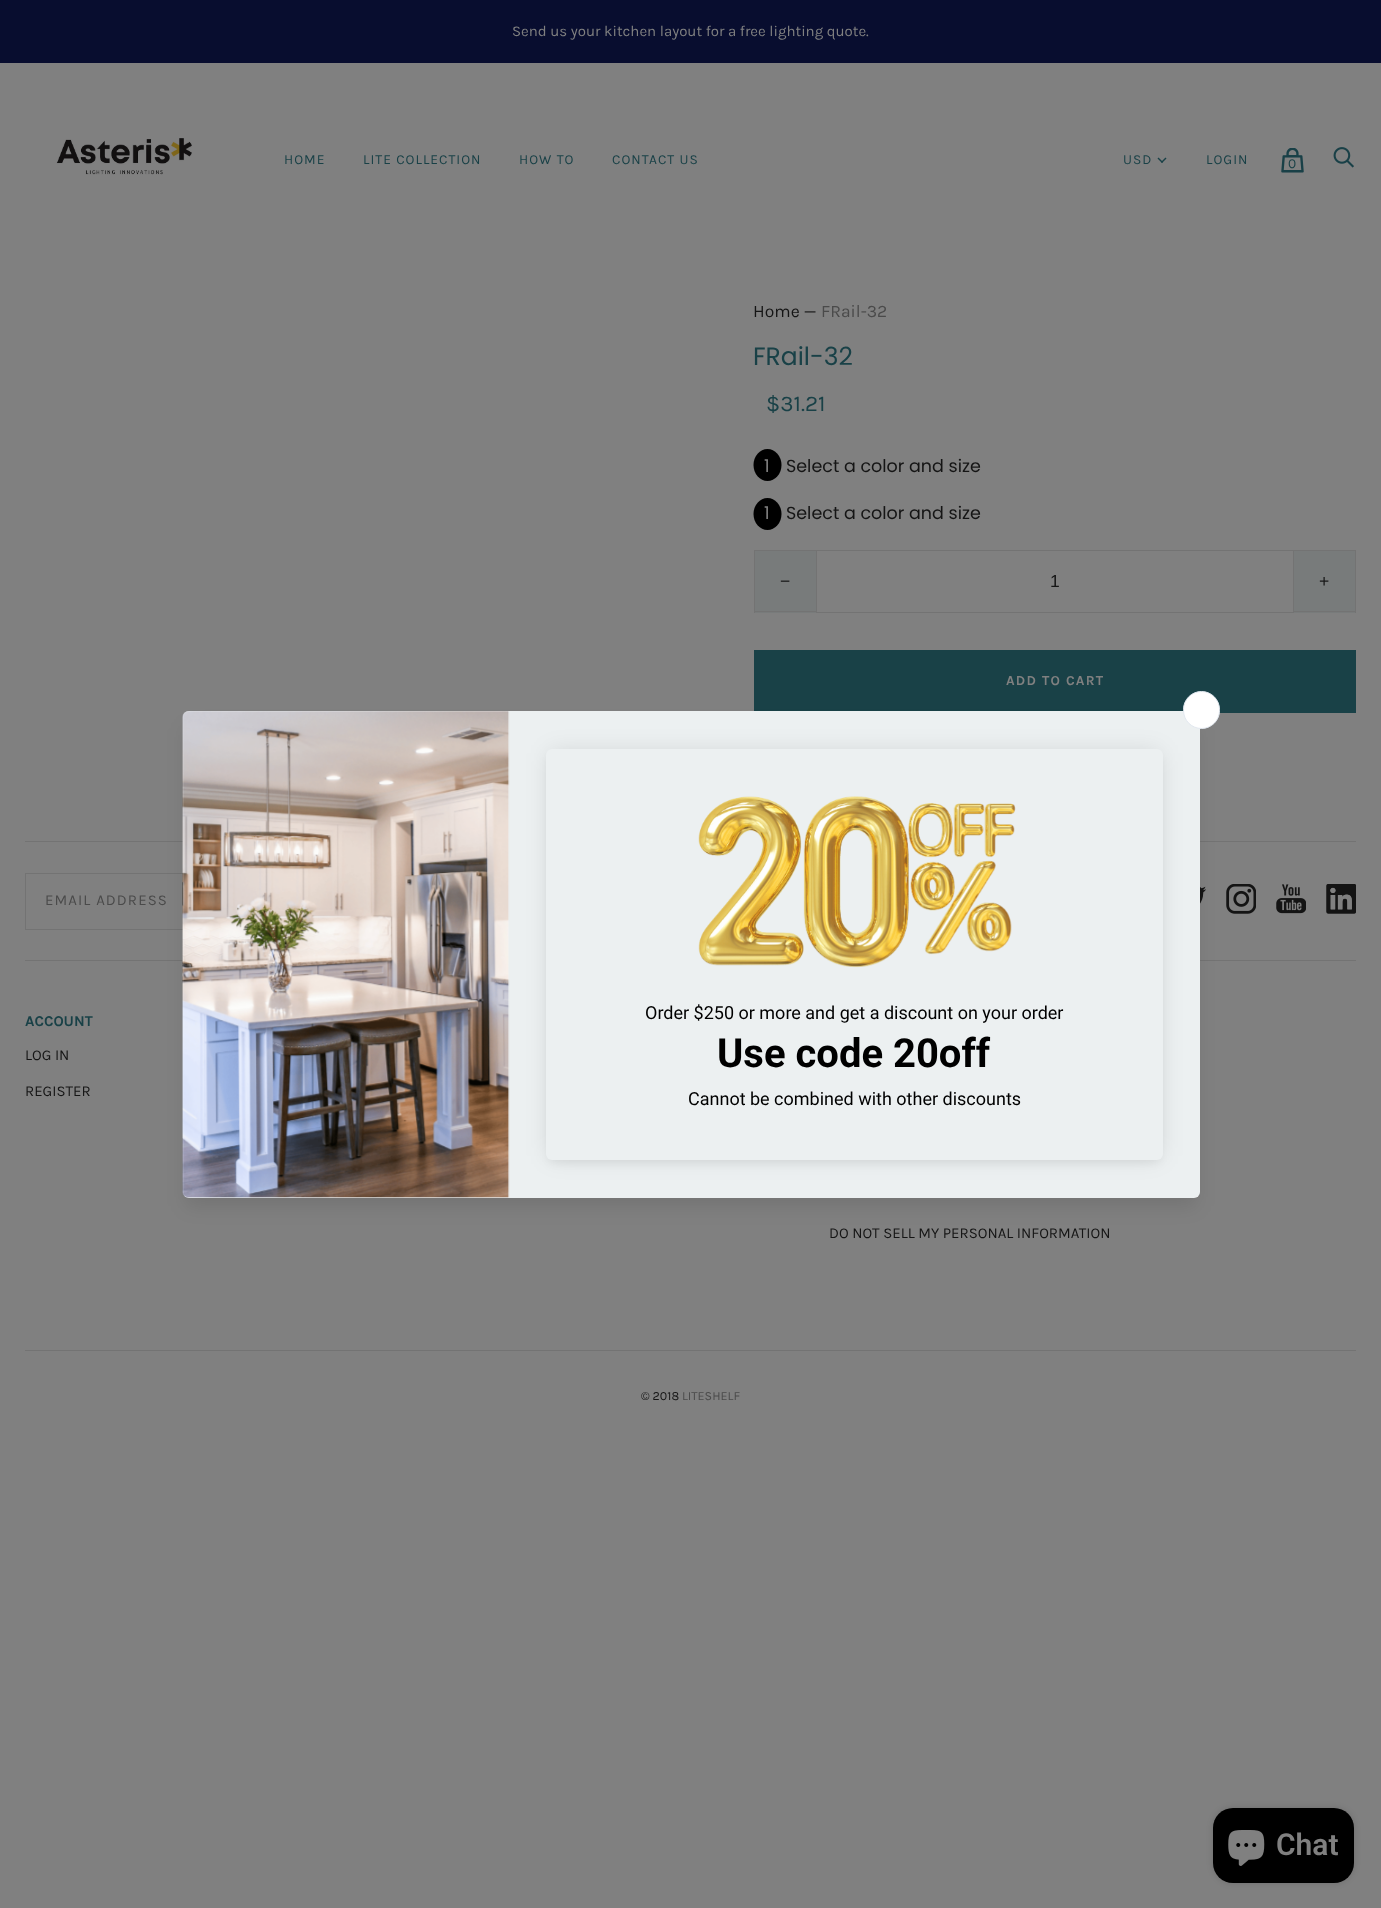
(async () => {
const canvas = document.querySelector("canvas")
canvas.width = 1381
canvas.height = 1908
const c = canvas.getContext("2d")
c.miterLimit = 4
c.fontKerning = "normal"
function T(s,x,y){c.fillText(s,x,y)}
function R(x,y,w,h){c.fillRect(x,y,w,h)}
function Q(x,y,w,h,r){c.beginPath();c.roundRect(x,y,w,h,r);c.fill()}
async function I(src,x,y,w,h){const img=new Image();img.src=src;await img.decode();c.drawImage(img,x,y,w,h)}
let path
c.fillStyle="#808080"
R(0,0,1381,1908)
c.fillStyle="#080d2f"
R(0,0,1381,63)
c.font="15px Karla"
c.fillStyle="#808080"
T("Send us your kitchen layout for a free lighting quote.",512,36)
await I("1.png",56,138,136,37)
c.letterSpacing="1px"
c.font="13.75px Karla"
c.fillStyle="#194147"
T("HOME",284,164)
T("LITE COLLECTION",363,164)
T("HOW TO",519,164)
T("CONTACT US",612,164)
T("USD",1123,164)
path = new Path2D("M1161 162l4.5-4.5l1 1l-4.5 4.5z")
c.fill(path)
path = new Path2D("M1157.5 158.5l1-1l4.5 4.5l-1 1z")
c.fill(path)
T("LOGIN",1206,164)
await I("2.png",1281,148,23,25)
c.letterSpacing="0px"
T("0",1288,168)
await I("3.png",1333,147,21,21)
c.font="17.5px Karla"
c.fillStyle="#151515"
T("Home —",753,317)
c.fillStyle="#4a4a4a"
T("FRail-32",821,317)
c.font="25px Poppins"
c.fillStyle="#194147"
T("FRail-32",753,365)
c.font="22.5px Karla"
T("$31.21",766,411)
c.fillStyle="#000"
c.beginPath()
c.ellipse(767.5,465,14,16,0,0,7)
c.fill()
c.font="17.5px Poppins"
c.fillStyle="#808080"
T("1",764,472)
c.fillStyle="#151515"
T("Select a color and size",786,472)
c.fillStyle="#000"
c.beginPath()
c.ellipse(767.5,514,14,16,0,0,7)
c.fill()
c.fillStyle="#808080"
T("1",764,519)
c.fillStyle="#151515"
T("Select a color and size",786,519)
c.fillStyle="#787b7b"
R(755,551,61,62)
c.fillStyle="#737373"
R(754,550,62,1)
R(754,611,62,1)
R(754,550,1,63)
c.font="17.5px Liberation Sans"
c.fillStyle="#151515"
T("−",780,587)
c.strokeStyle="#737373"
c.strokeRect(816.5,550.5,477,62)
T("1",1050,587)
c.fillStyle="#787b7b"
R(1294,551,61,62)
c.fillStyle="#737373"
R(1294,550,62,1)
R(1355,550,1,63)
R(1294,611,62,1)
c.fillStyle="#151515"
T("+",1319,587)
c.fillStyle="#194147"
R(754,650,602,63)
c.letterSpacing="1.25px"
c.font="bold 13.75px Karla"
c.fillStyle="#808080"
T("ADD TO CART",1006,685)
c.fillStyle="#737373"
R(25,841,1331,1)
R(25,873,158,1)
R(25,929,158,1)
R(25,873,1,57)
c.letterSpacing="1.1px"
c.font="15px Karla"
c.fillStyle="#4a4a4a"
T("EMAIL ADDRESS",45,905)
await I("4.png",1200,886,6,18)
await I("5.png",1226,884,30,30)
await I("6.png",1276,884,30,30)
await I("7.png",1326,884,30,30)
c.fillStyle="#737373"
R(25,960,1331,1)
c.letterSpacing="0px"
c.font="bold 15px Karla"
c.fillStyle="#194147"
T("ACCOUNT",25,1026)
c.font="15px Karla"
c.fillStyle="#151515"
T("LOG IN",25,1060)
T("REGISTER",25,1096)
T("DO NOT SELL MY PERSONAL INFORMATION",829,1238)
c.fillStyle="#737373"
R(25,1350,1331,1)
c.font="12.5px Karla"
c.fillStyle="#151515"
T("© 2018",641,1400)
c.fillStyle="#4a4a4a"
T("LITESHELF",682,1400)
c.fillStyle="#0000001a"
c.filter="blur(9.5px)"
c.beginPath()
c.roundRect(186,728,1010,478,2.5)
c.fill()
c.filter="none"
c.fillStyle="#ecf0f1"
Q(183,711,1017,487,6)
c.fillStyle="#0000001f"
c.filter="blur(12.5px)"
c.beginPath()
c.roundRect(550,753,609,403,2.5)
c.fill()
c.filter="none"
c.fillStyle="#fff"
c.beginPath()
c.roundRect(1183.5,691.5,36,37,18)
c.fill()
c.strokeStyle="#e2e8f0"
c.stroke()
await I("8.png",182,711,328,487)
c.fillStyle="#0000000d"
c.filter="blur(4px)"
c.beginPath()
c.roundRect(549,756,611,407,4)
c.fill()
c.filter="none"
c.fillStyle="#ecf0f1"
Q(546,749,617,411,6)
await I("9.png",698,796,318,172)
c.font="18px Roboto"
c.fillStyle="#000"
T("Order $250 or more and get a discount on your order",645,1019)
c.font="bold 40px Roboto"
T("Use code 20off",717,1067)
c.font="18px Roboto"
T("Cannot be combined with other discounts",688,1105)
c.fillStyle="#00000026"
c.filter="blur(3px)"
c.beginPath()
c.roundRect(1213,1808,141,75,20)
c.fill()
c.filter="none"
c.fillStyle="#000"
Q(1213,1808,141,75,20)
await I("10.png",1228,1830,37,36)
c.font="600 30px Roboto"
c.fillStyle="#808080"
T("Chat",1276,1855)
})()
